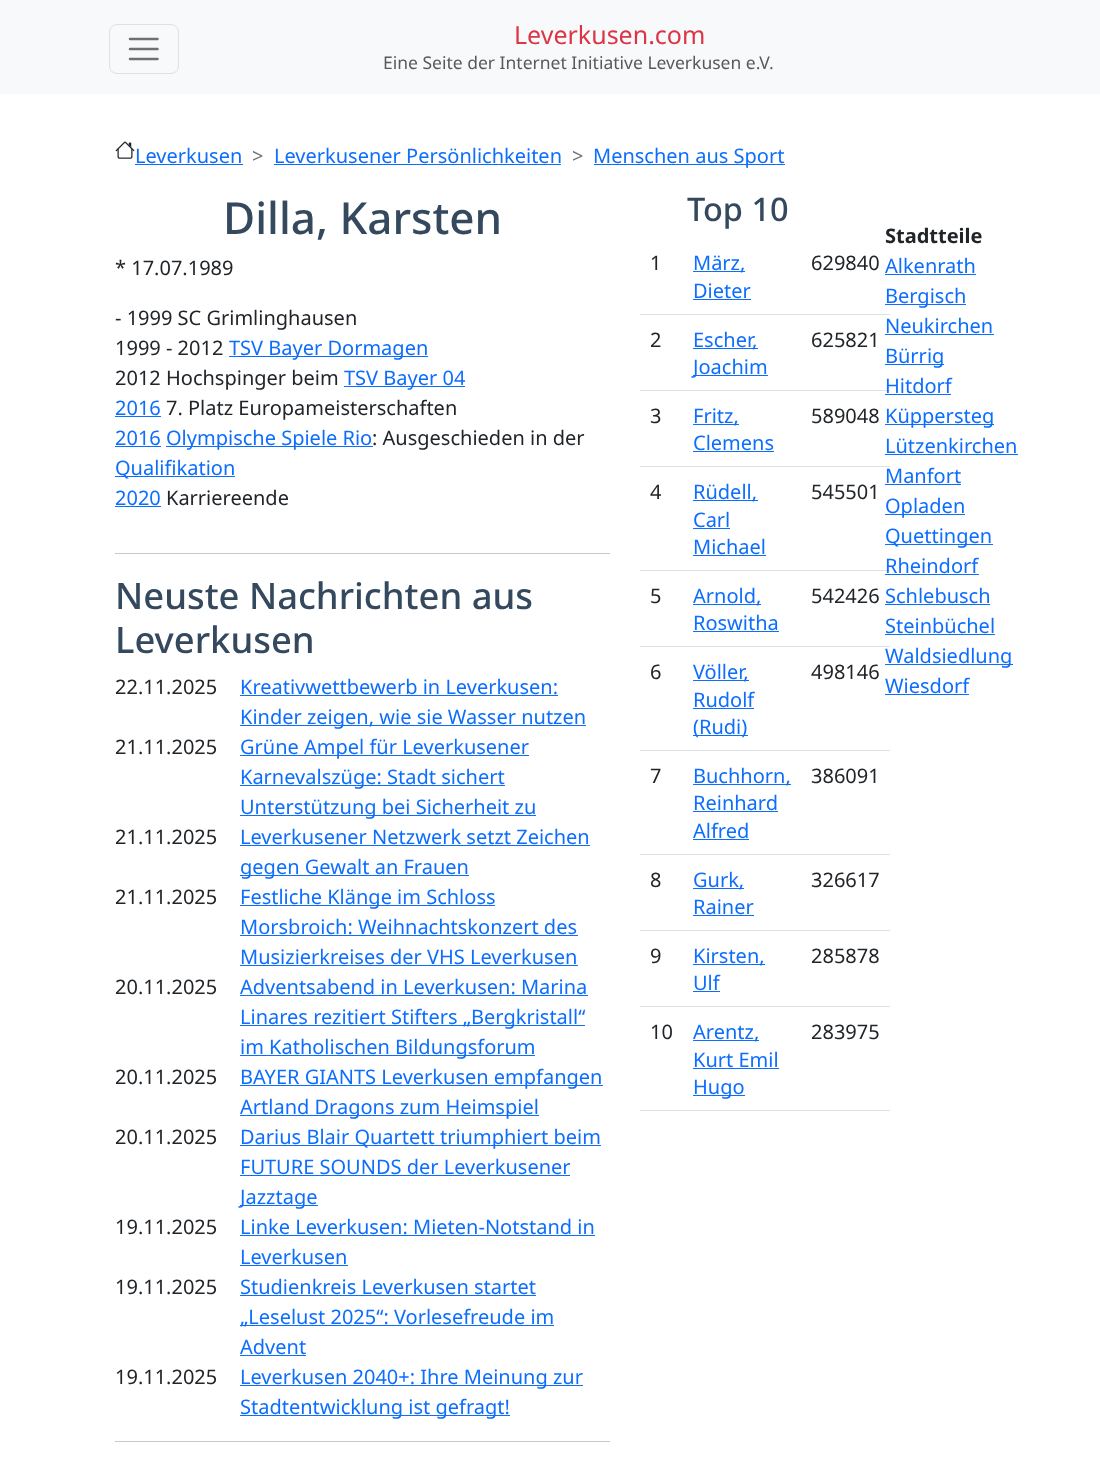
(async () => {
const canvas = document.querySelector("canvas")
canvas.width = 1100
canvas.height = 1471
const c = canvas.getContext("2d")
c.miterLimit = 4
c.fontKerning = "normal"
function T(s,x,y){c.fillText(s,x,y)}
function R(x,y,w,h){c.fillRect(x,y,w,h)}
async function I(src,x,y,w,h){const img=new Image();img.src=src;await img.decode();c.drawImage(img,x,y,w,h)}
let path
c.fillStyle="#fff"
R(0,0,1100,1471)
c.fillStyle="#f8f9fa"
R(0,0,1100,94)
c.beginPath()
c.roundRect(109.5,24.5,69,49,7.5)
c.strokeStyle="#dfe0e1"
c.stroke()
path = new Path2D("M130 39h27.5m-27.5 10h27.5m-27.5 10h27.5")
c.strokeStyle="#707071"
c.lineWidth=2.5
c.lineCap="round"
c.stroke(path)
c.font="25px Noto Sans"
c.fillStyle="#dc3545"
T("Leverkusen.com",514,44)
c.font="17.5px Noto Sans"
c.fillStyle="#575a5d"
T("Eine Seite der Internet Initiative Leverkusen e.V.",383,69)
await I("1.png",115,141,20,18)
c.font="20px Noto Sans"
c.fillStyle="#0d6efd"
T("Leverkusen",135,163)
R(135,164,108,1)
c.fillStyle="#6c757d"
T(">",252,163)
c.fillStyle="#0d6efd"
T("Leverkusener Persönlichkeiten",274,163)
R(274,164,287,1)
c.fillStyle="#6c757d"
T(">",572,163)
c.fillStyle="#0d6efd"
R(594,164,191,1)
T("Menschen aus Sport",593,163)
c.font="500 44px Noto Sans"
c.fillStyle="#34495e"
T("Dilla, Karsten",223,234)
c.font="20px Noto Sans"
c.fillStyle="#212529"
T("* 17.07.1989",115,275)
T("- 1999 SC Grimlinghausen",115,325)
T("1999 - 2012",115,355)
c.fillStyle="#0d6efd"
R(229,356,199,1)
T("TSV Bayer Dormagen",229,355)
c.fillStyle="#212529"
T("2012 Hochspinger beim",115,385)
c.fillStyle="#0d6efd"
R(344,386,121,1)
T("TSV Bayer 04",344,385)
T("2016",115,415)
R(115,416,46,1)
c.fillStyle="#212529"
T("7. Platz Europameisterschaften",166,415)
c.fillStyle="#0d6efd"
T("2016",115,445)
R(115,446,46,1)
R(166,446,207,1)
T("Olympische Spiele Rio",166,445)
c.fillStyle="#212529"
T(": Ausgeschieden in der",372,445)
c.fillStyle="#0d6efd"
R(115,476,120,1)
T("Qualifikation",115,475)
T("2020",115,505)
R(115,506,46,1)
c.fillStyle="#212529"
T("Karriereende",166,505)
c.fillStyle="#c8c9ca"
R(115,553,495,1)
c.font="500 36.4px Noto Sans"
c.fillStyle="#34495e"
T("Neuste Nachrichten aus",115,609)
T("Leverkusen",115,653)
c.font="20px Noto Sans"
c.fillStyle="#212529"
T("22.11.2025",115,694)
c.fillStyle="#0d6efd"
T("Kreativwettbewerb in Leverkusen:",240,694)
R(240,695,318,1)
R(240,725,346,1)
T("Kinder zeigen, wie sie Wasser nutzen",240,724)
c.fillStyle="#212529"
T("21.11.2025",115,754)
c.fillStyle="#0d6efd"
R(240,755,289,1)
T("Grüne Ampel für Leverkusener",240,754)
R(240,785,265,1)
T("Karnevalszüge: Stadt sichert",240,784)
R(240,815,296,1)
T("Unterstützung bei Sicherheit zu",240,814)
c.fillStyle="#212529"
T("21.11.2025",115,844)
c.fillStyle="#0d6efd"
T("Leverkusener Netzwerk setzt Zeichen",240,844)
R(240,845,350,1)
R(240,875,229,1)
T("gegen Gewalt an Frauen",240,874)
c.fillStyle="#212529"
T("21.11.2025",115,904)
c.fillStyle="#0d6efd"
R(240,905,255,1)
T("Festliche Klänge im Schloss",240,904)
T("Morsbroich: Weihnachtskonzert des",240,934)
R(240,935,338,1)
T("Musizierkreises der VHS Leverkusen",240,964)
R(240,965,338,1)
c.fillStyle="#212529"
T("20.11.2025",115,994)
c.fillStyle="#0d6efd"
T("Adventsabend in Leverkusen: Marina",240,994)
R(240,995,348,1)
R(240,1025,345,1)
T("Linares rezitiert Stifters „Bergkristall“",240,1024)
R(240,1055,295,1)
T("im Katholischen Bildungsforum",240,1054)
c.fillStyle="#212529"
T("20.11.2025",115,1084)
c.fillStyle="#0d6efd"
R(240,1085,363,1)
T("BAYER GIANTS Leverkusen empfangen",240,1084)
R(240,1115,299,1)
T("Artland Dragons zum Heimspiel",240,1114)
c.fillStyle="#212529"
T("20.11.2025",115,1144)
c.fillStyle="#0d6efd"
R(240,1145,361,1)
T("Darius Blair Quartett triumphiert beim",240,1144)
T("FUTURE SOUNDS der Leverkusener",240,1174)
R(240,1175,330,1)
R(240,1205,78,1)
T("Jazztage",240,1204)
c.fillStyle="#212529"
T("19.11.2025",115,1234)
c.fillStyle="#0d6efd"
T("Linke Leverkusen: Mieten-Notstand in",240,1234)
R(240,1235,355,1)
T("Leverkusen",240,1264)
R(240,1265,108,1)
c.fillStyle="#212529"
T("19.11.2025",115,1294)
c.fillStyle="#0d6efd"
T("Studienkreis Leverkusen startet",240,1294)
R(240,1295,296,1)
R(240,1325,314,1)
T("„Leselust 2025“: Vorlesefreude im",240,1324)
T("Advent",240,1354)
R(240,1355,66,1)
c.fillStyle="#212529"
T("19.11.2025",115,1384)
c.fillStyle="#0d6efd"
R(240,1385,343,1)
T("Leverkusen 2040+: Ihre Meinung zur",240,1384)
R(240,1415,270,1)
T("Stadtentwicklung ist gefragt!",240,1414)
c.fillStyle="#c8c9ca"
R(115,1441,495,1)
c.font="500 32.5px Noto Sans"
c.fillStyle="#34495e"
T("Top 10",687,221)
c.font="20px Noto Sans"
c.fillStyle="#212529"
T("1",650,270)
c.fillStyle="#0d6efd"
R(693,271,52,1)
T("März,",693,270)
T("Dieter",693,298)
R(693,299,58,1)
c.fillStyle="#dee2e6"
R(640,314,250,1)
c.fillStyle="#212529"
T("629840",811,270)
T("2",650,347)
c.fillStyle="#0d6efd"
R(693,348,65,1)
T("Escher,",693,347)
R(693,375,75,1)
T("Joachim",693,374)
c.fillStyle="#dee2e6"
R(640,390,250,1)
c.fillStyle="#212529"
T("625821",811,347)
T("3",650,423)
c.fillStyle="#0d6efd"
R(693,424,46,1)
T("Fritz,",693,423)
T("Clemens",693,450)
R(693,451,81,1)
c.fillStyle="#dee2e6"
R(640,466,250,1)
c.fillStyle="#212529"
T("589048",811,423)
T("4",650,499)
c.fillStyle="#0d6efd"
R(693,500,65,1)
T("Rüdell,",693,499)
T("Carl",693,527)
R(693,528,37,1)
T("Michael",693,554)
R(693,555,73,1)
c.fillStyle="#dee2e6"
R(640,570,250,1)
c.fillStyle="#212529"
T("545501",811,499)
T("5",650,603)
c.fillStyle="#0d6efd"
R(693,604,68,1)
T("Arnold,",693,603)
T("Roswitha",693,630)
R(693,631,86,1)
c.fillStyle="#dee2e6"
R(640,646,250,1)
c.fillStyle="#212529"
T("542426",811,603)
T("6",650,679)
c.fillStyle="#0d6efd"
R(693,680,56,1)
T("Völler,",693,679)
T("Rudolf",693,707)
R(693,708,61,1)
R(693,735,55,1)
T("(Rudi)",693,734)
c.fillStyle="#dee2e6"
R(640,750,250,1)
c.fillStyle="#212529"
T("498146",811,679)
T("7",650,783)
c.fillStyle="#0d6efd"
R(693,784,98,1)
T("Buchhorn,",693,783)
T("Reinhard",693,810)
R(693,811,85,1)
T("Alfred",693,838)
R(693,839,56,1)
c.fillStyle="#dee2e6"
R(640,854,250,1)
c.fillStyle="#212529"
T("386091",811,783)
T("8",650,887)
c.fillStyle="#0d6efd"
R(693,888,51,1)
T("Gurk,",693,887)
T("Rainer",693,914)
R(693,915,61,1)
c.fillStyle="#dee2e6"
R(640,930,250,1)
c.fillStyle="#212529"
T("326617",811,887)
T("9",650,963)
c.fillStyle="#0d6efd"
R(693,964,72,1)
T("Kirsten,",693,963)
T("Ulf",693,990)
R(693,991,27,1)
c.fillStyle="#dee2e6"
R(640,1006,250,1)
c.fillStyle="#212529"
T("285878",811,963)
T("10",650,1039)
c.fillStyle="#0d6efd"
R(693,1040,66,1)
T("Arentz,",693,1039)
T("Kurt Emil",693,1067)
R(693,1068,86,1)
R(693,1095,52,1)
T("Hugo",693,1094)
c.fillStyle="#dee2e6"
R(640,1110,250,1)
c.fillStyle="#212529"
T("283975",811,1039)
c.font="bold 20px Noto Sans"
T("Stadtteile",885,243)
c.font="20px Noto Sans"
c.fillStyle="#0d6efd"
T("Alkenrath",885,273)
R(885,274,91,1)
R(885,304,81,1)
T("Bergisch",885,303)
T("Neukirchen",885,333)
R(885,334,109,1)
R(885,364,59,1)
T("Bürrig",885,363)
T("Hitdorf",885,393)
R(885,394,66,1)
R(885,424,109,1)
T("Küppersteg",885,423)
T("Lützenkirchen",885,453)
R(885,454,133,1)
T("Manfort",885,483)
R(885,484,76,1)
R(885,514,80,1)
T("Opladen",885,513)
R(885,544,108,1)
T("Quettingen",885,543)
T("Rheindorf",885,573)
R(885,574,94,1)
T("Schlebusch",885,603)
R(885,604,105,1)
T("Steinbüchel",885,633)
R(885,634,110,1)
R(885,664,128,1)
T("Waldsiedlung",885,663)
T("Wiesdorf",885,693)
R(885,694,84,1)
})()
